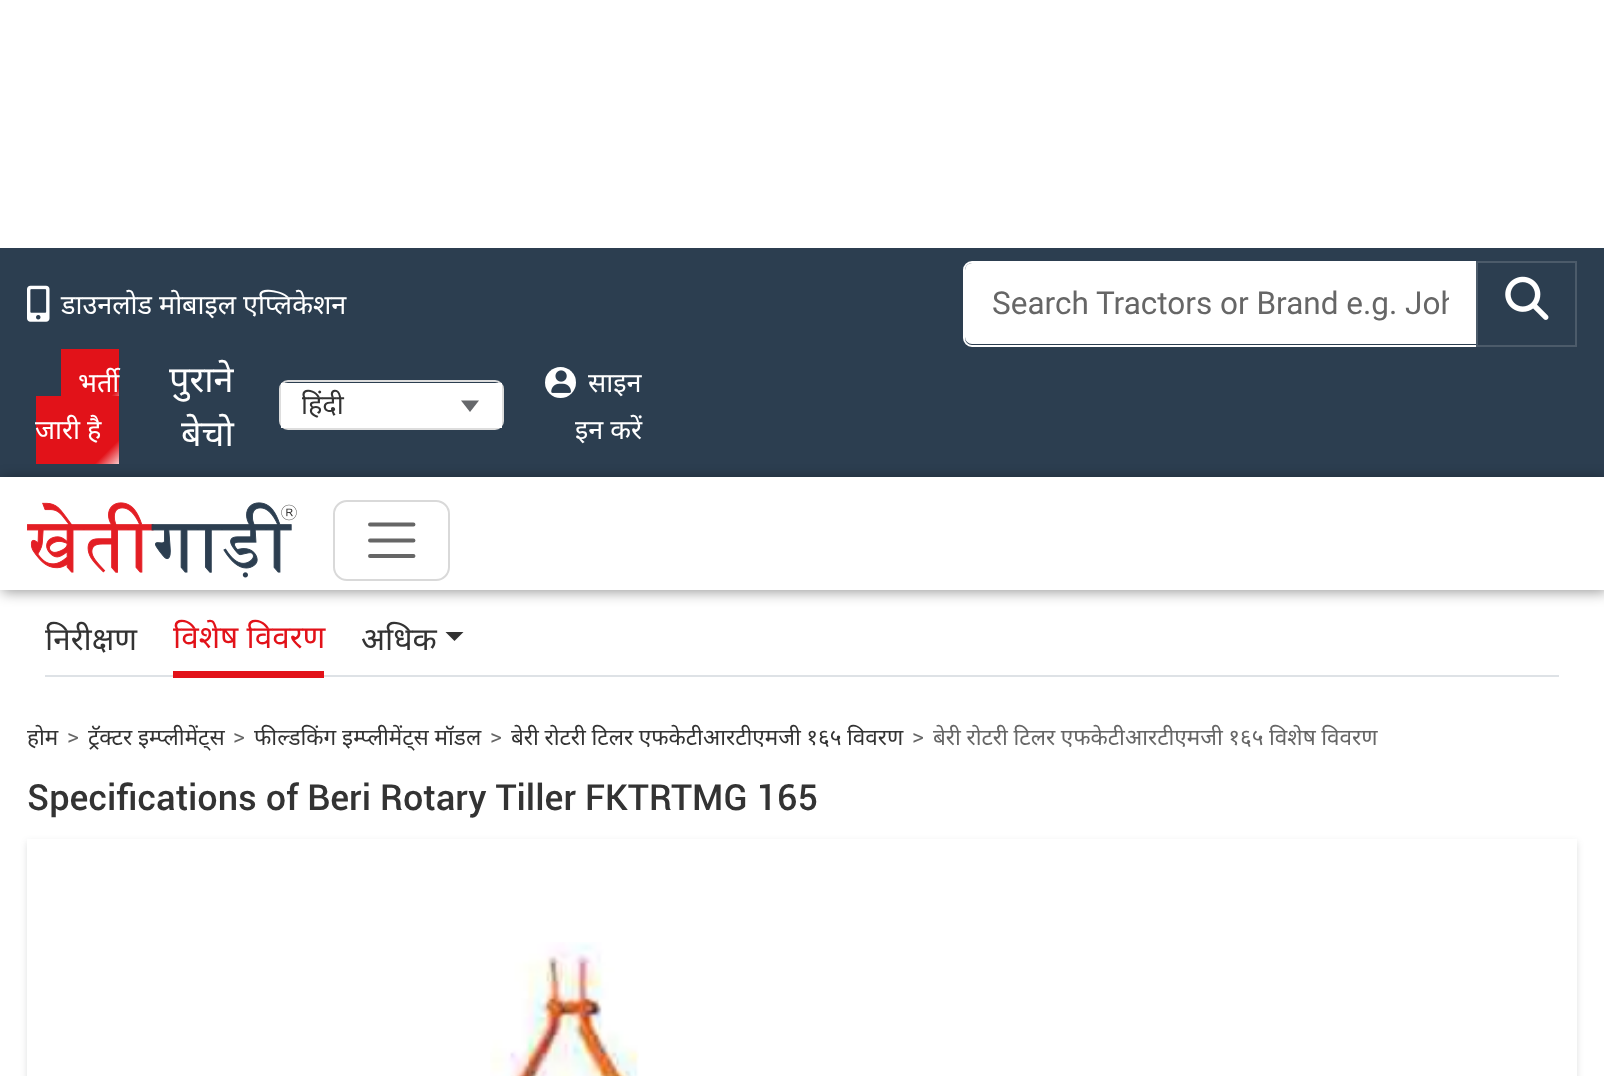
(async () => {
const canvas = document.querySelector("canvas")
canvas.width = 1604
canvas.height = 1076
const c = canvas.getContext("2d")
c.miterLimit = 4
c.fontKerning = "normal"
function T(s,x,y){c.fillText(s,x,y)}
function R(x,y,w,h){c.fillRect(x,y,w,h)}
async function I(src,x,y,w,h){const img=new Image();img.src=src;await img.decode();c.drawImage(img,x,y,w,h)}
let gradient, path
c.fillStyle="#fff"
R(0,0,1604,1076)
c.fillStyle="#2c3e50"
R(0,248,1604,229)
await I("1.png",27,285,23,37)
c.font="27px Noto Sans"
c.fillStyle="#fff"
T("डाउनलोड मोबाइल एप्लिकेशन",61,314)
c.beginPath()
c.roundRect(965,263,511,81,[7,0,0,7])
c.fill()
c.beginPath()
c.roundRect(964,262,513,84,[8,0,0,8])
c.strokeStyle="#fff"
c.lineWidth=2
c.stroke()
c.save()
c.beginPath()
c.rect(992,286,457,36)
c.clip()
c.font="31.5px Roboto"
c.fillStyle="#666"
T("Search Tractors or Brand e.g. Joh",992,314)
c.restore()
c.strokeStyle="#4c5b6a"
c.strokeRect(1477,262,99,84)
await I("2.png",1505,276,44,44)
gradient = c.createLinearGradient(88,322,209,443)
gradient.addColorStop(0,"#e21219")
gradient.addColorStop(.4,"#e21219")
gradient.addColorStop(.5,"#fff")
gradient.addColorStop(.6,"#e21219")
gradient.addColorStop(1,"#e21219")
c.fillStyle = gradient
R(61,349,58,47)
c.fillStyle="#fff"
T("भर्ती",78,392)
gradient = c.createLinearGradient(82,350,240,509)
gradient.addColorStop(0,"#e21219")
gradient.addColorStop(.4,"#e21219")
gradient.addColorStop(.5,"#fff")
gradient.addColorStop(.6,"#e21219")
gradient.addColorStop(1,"#e21219")
c.fillStyle = gradient
R(36,396,83,68)
c.fillStyle="#fff"
T("जारी है",35,439)
c.font="36px Noto Sans"
T("पुराने",169,392)
T("बेचो",181,446)
c.beginPath()
c.roundRect(280,381,223,48,8)
c.strokeStyle="#ddd"
c.stroke()
R(281,383,221,45)
c.save()
c.beginPath()
c.rect(302,385,155,40)
c.clip()
c.font="27px Noto Sans"
c.fillStyle="#333"
T("हिंदी",301,414)
c.restore()
c.fillStyle="#66686b"
path = new Path2D("M461 400.5h18l-9 11.5z")
c.fill(path)
c.fillStyle="#fff"
c.beginPath()
c.arc(560.5,382.5,15.5,0,7)
c.fill()
await I("3.png",551,370,20,23)
c.font="27px Noto Sans"
T("साइन",588,392)
T("इन करें",575,439)
c.fillStyle="#00000066"
c.filter="blur(7px)"
c.beginPath()
c.rect(2,479,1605,113)
c.fill()
c.filter="none"
c.fillStyle="#fff"
R(0,477,1604,113)
await I("4.png",27,502,270,76)
c.beginPath()
c.roundRect(334,501,115,79,13)
c.strokeStyle="#d9d9d9"
c.stroke()
path = new Path2D("M370 524.5h43.5m-43.5 16h43.5m-43.5 15.5h43.5")
c.strokeStyle="#666"
c.lineWidth=3.9
c.lineCap="round"
c.stroke(path)
c.fillStyle="#dee2e6"
R(45,675,1514,2)
c.font="31.5px Noto Sans"
c.fillStyle="#333"
T("निरीक्षण",45,650)
c.fillStyle="#e21219"
R(173,671,151,7)
T("विशेष विवरण",173,648)
c.fillStyle="#333"
T("अधिक",361,650)
path = new Path2D("M445.5 632h18l-9 9z")
c.fill(path)
c.save()
c.beginPath()
c.rect(27,702,1550,70)
c.clip()
c.font="22.5px Noto Sans"
T("होम",27,745)
c.restore()
c.font="22.5px Roboto"
c.fillStyle="#666"
T(">",67,745)
c.font="22.5px Noto Sans"
c.fillStyle="#333"
T("ट्रॅक्टर इम्प्लीमेंट्स",88,745)
c.font="22.5px Roboto"
c.fillStyle="#666"
T(">",233,745)
c.font="22.5px Noto Sans"
c.fillStyle="#333"
T("फील्डकिंग इम्प्लीमेंट्स मॉडल",254,745)
c.font="22.5px Roboto"
c.fillStyle="#666"
T(">",490,745)
c.wordSpacing="-0.25px"
c.font="22.5px Noto Sans"
c.fillStyle="#333"
T("बेरी रोटरी टिलर एफकेटीआरटीएमजी १६५ विवरण",511,745)
c.wordSpacing="0px"
c.font="22.5px Roboto"
c.fillStyle="#666"
T(">",912,745)
c.wordSpacing="-0.25px"
c.font="22.5px Noto Sans"
T("बेरी रोटरी टिलर एफकेटीआरटीएमजी १६५ विशेष विवरण",933,745)
c.wordSpacing="0px"
c.font="500 36px Roboto"
c.fillStyle="#333"
T("Specifications of Beri Rotary Tiller FKTRTMG 165",27,810)
c.fillStyle="#24272c26"
c.filter="blur(3.5px)"
c.beginPath()
c.rect(27,842,1550,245)
c.fill()
c.filter="none"
c.fillStyle="#fff"
R(27,839,1550,237)
await I("5.png",490,942,149,134)
})()
